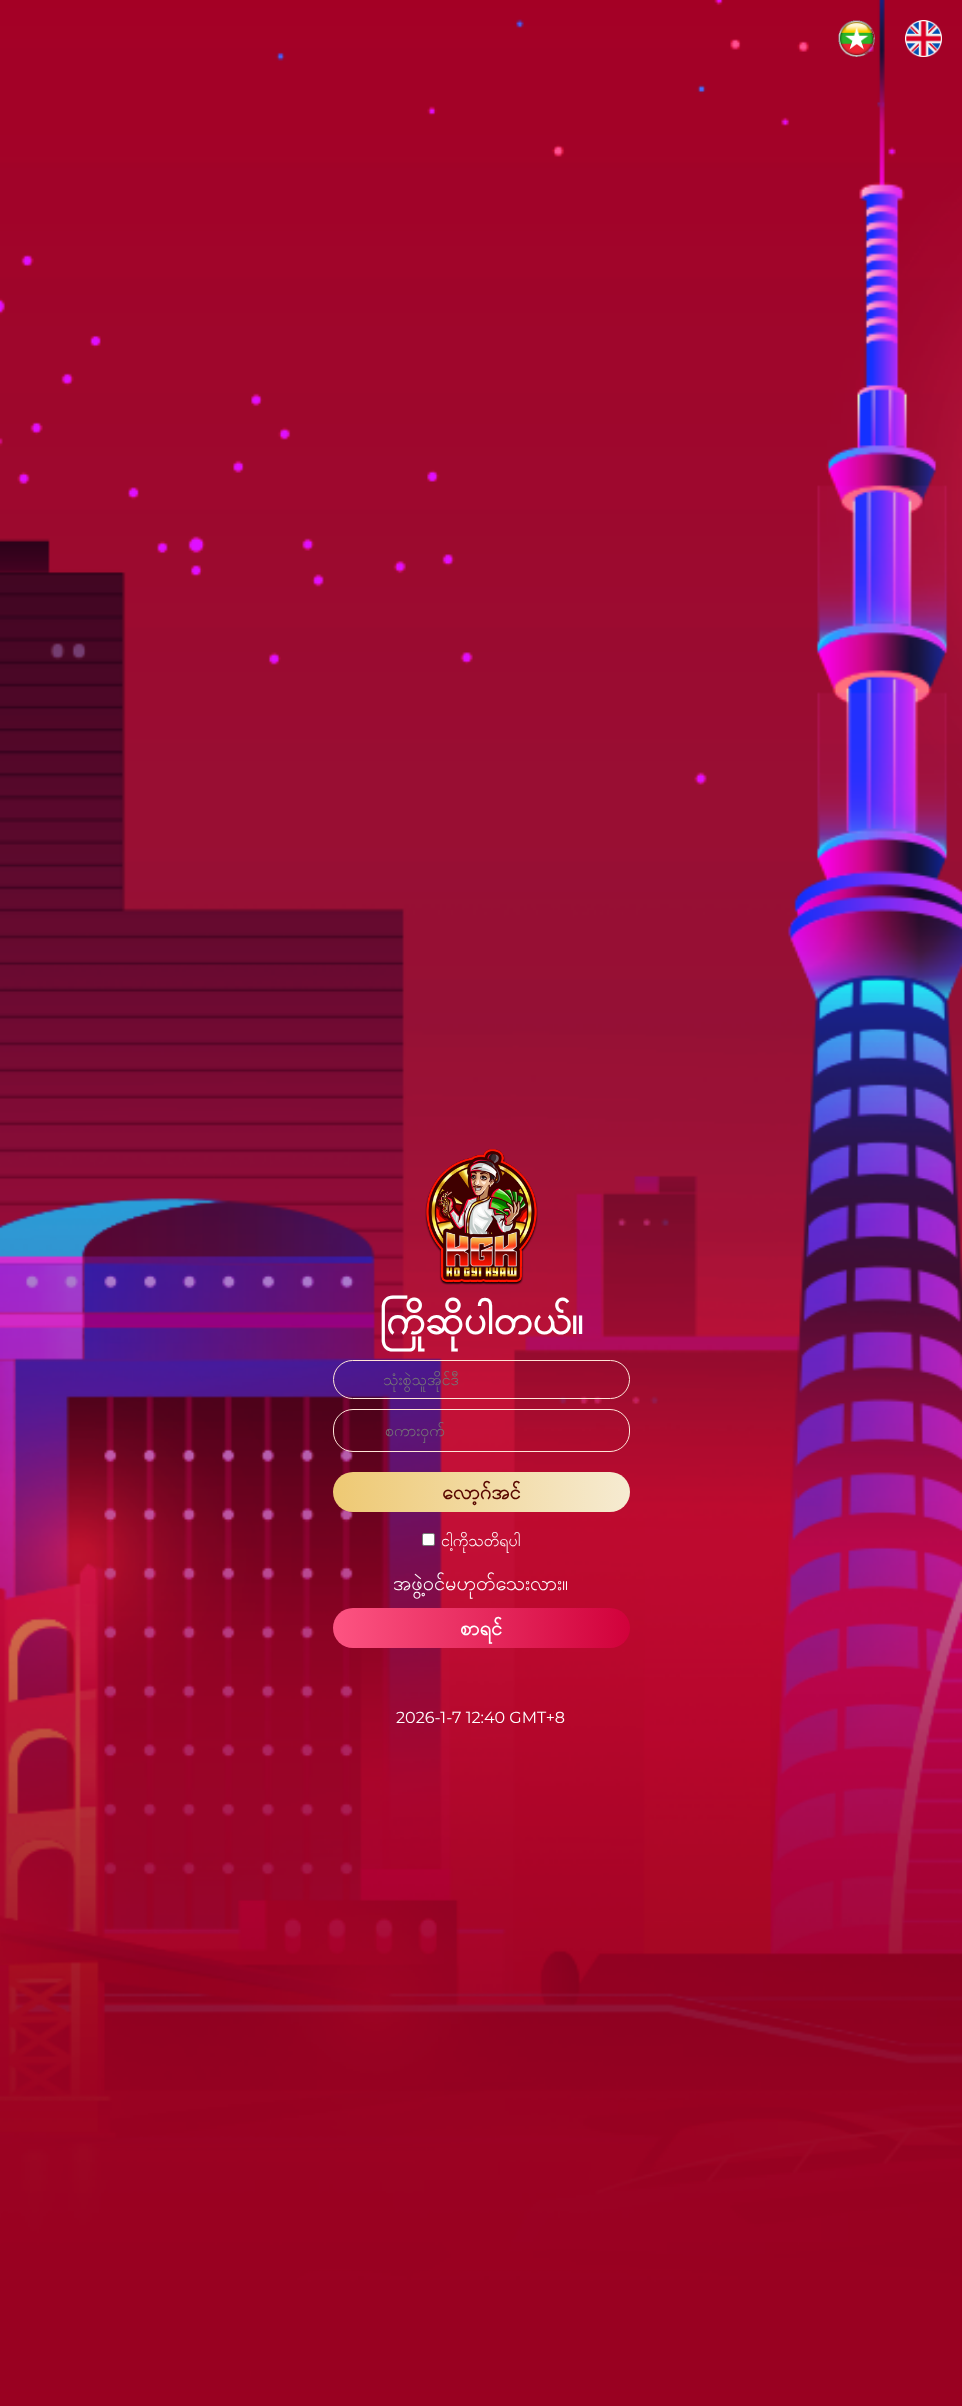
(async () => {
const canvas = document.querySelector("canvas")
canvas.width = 962
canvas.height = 2406
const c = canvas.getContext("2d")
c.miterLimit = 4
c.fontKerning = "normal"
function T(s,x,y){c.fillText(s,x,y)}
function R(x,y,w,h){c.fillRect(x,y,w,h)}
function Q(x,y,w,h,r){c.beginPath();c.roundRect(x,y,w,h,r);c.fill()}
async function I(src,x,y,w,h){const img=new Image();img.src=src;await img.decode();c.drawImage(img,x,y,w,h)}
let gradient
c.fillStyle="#fff"
R(0,0,962,2406)
await I("1.png",0,0,962,2406)
await I("2.png",838,20,37,37)
await I("3.png",905,20,37,37)
await I("4.png",425,1149,113,136)
c.font="bold 40px Padauk"
T("ကြိုဆိုပါတယ်။",379,1334)
c.beginPath()
c.roundRect(333.5,1360.5,296,38,19)
c.strokeStyle="#ffe5d8"
c.stroke()
c.save()
c.beginPath()
c.rect(383,1369,242,24)
c.clip()
c.font="16px Padauk"
c.fillStyle="#757575"
T("သုံးစွဲသူအိုင်ဒီ",383,1385)
c.restore()
c.beginPath()
c.roundRect(333.5,1409.5,296,42,19.5)
c.stroke()
c.font="16px Padauk"
c.fillStyle="#757575"
T("စကားဝှက်",385,1436)
gradient = c.createLinearGradient(333,1492,630,1492)
gradient.addColorStop(0,"#eec973")
gradient.addColorStop(1,"#f6ebd2")
c.fillStyle = gradient
Q(333,1472,297,40,20)
c.font="bold 20px Padauk"
c.fillStyle="#590801"
T("လော့ဂ်အင်",442,1499)
c.fillStyle="#fff"
c.beginPath()
c.roundRect(422.5,1533.5,12,12,1.5)
c.fill()
c.strokeStyle="#767676"
c.stroke()
c.font="16px Padauk"
T("ငါ့ကိုသတိရပါ",441,1546)
c.font="20px Padauk"
T("အဖွဲ့ဝင်မဟုတ်သေးလား။",393,1590)
gradient = c.createLinearGradient(333,1628,630,1628)
gradient.addColorStop(0,"#fd5482")
gradient.addColorStop(1,"#d1013b")
c.fillStyle = gradient
Q(333,1608,297,40,20)
c.font="bold 20px Padauk"
c.fillStyle="#fff"
T("စာရင်",460,1635)
c.font="16px Montserrat"
T("2026-1-7 12:40 GMT+8",396,1723)
})()
